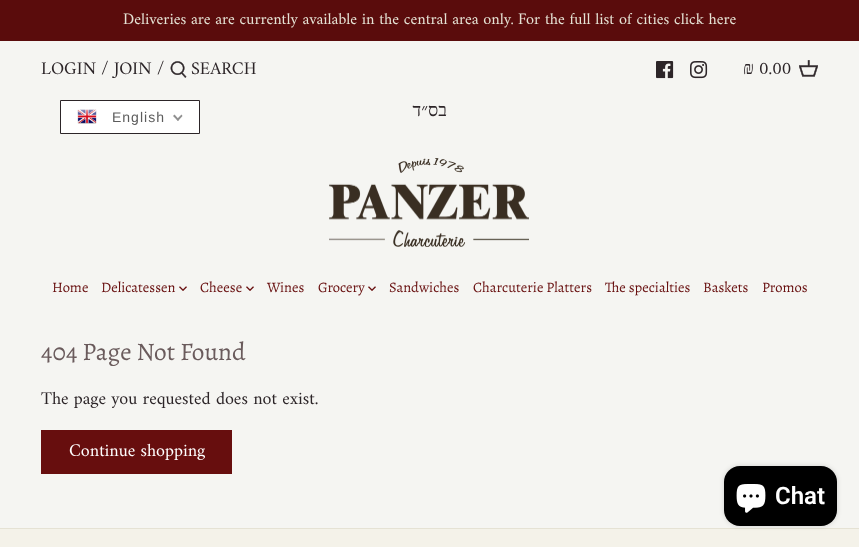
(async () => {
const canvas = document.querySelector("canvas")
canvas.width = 859
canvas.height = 547
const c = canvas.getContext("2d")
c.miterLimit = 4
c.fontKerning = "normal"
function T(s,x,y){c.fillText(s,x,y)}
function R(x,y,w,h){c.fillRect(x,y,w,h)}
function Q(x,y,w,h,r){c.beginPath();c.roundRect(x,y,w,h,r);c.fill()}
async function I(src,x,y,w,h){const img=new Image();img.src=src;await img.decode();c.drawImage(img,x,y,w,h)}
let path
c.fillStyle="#f4f2e9"
R(0,0,859,547)
c.fillStyle="#f5f5f2"
R(0,41,859,487)
c.fillStyle="#5a0c0c"
R(0,0,859,41)
c.font="16.2px Amiri"
c.fillStyle="#e5e2d4"
T("Deliveries are are currently available in the central area only.",123,24)
T("For the full list of cities click here",518,24)
c.font="18px Amiri"
c.fillStyle="#2c2528"
T("LOGIN /",41,74)
T("JOIN /",114,74)
await I("1.png",170,61,17,17)
T("SEARCH",191,74)
await I("2.png",656,61,18,18)
await I("3.png",690,61,18,18)
c.font="18px Liberation Serif"
T("₪",743,74)
c.font="18px Amiri"
T("0.00",759,74)
await I("4.png",799,60,19,17)
c.direction="rtl"
c.font="18px Liberation Serif"
T("בס״ד",447,116)
await I("5.png",329,158,200,89)
c.direction="ltr"
c.font="14.5px Alegreya"
c.fillStyle="#670e0e"
T("Home",52,292)
T("Delicatessen",101,292)
await I("6.png",179,286,8,5)
T("Cheese",200,292)
await I("6.png",246,286,8,5)
T("Wines",267,292)
T("Grocery",318,292)
await I("6.png",368,286,8,5)
T("Sandwiches",389,292)
T("Charcuterie Platters",473,292)
T("The specialties",605,292)
T("Baskets",703,292)
T("Promos",762,292)
c.font="25.25px Alegreya"
c.fillStyle="#6a5b5c"
T("404 Page Not Found",41,360)
c.font="18px Amiri"
c.fillStyle="#2c2528"
T("The page you requested does not exist.",41,404)
c.fillStyle="#670e0e"
R(41,430,191,44)
c.fillStyle="#fff"
T("Continue shopping",69,456)
c.fillStyle="#e5e2d4"
R(0,528,859,1)
c.fillStyle="#fff"
c.beginPath()
c.rect(60.5,100.5,139,33)
c.fill()
c.strokeStyle="#2c2528"
c.stroke()
await I("7.png",77,109,20,15)
c.letterSpacing="1px"
c.font="14px Liberation Sans"
c.fillStyle="#5c5c5c"
T("English",112,122)
c.fillStyle="#909090"
path = new Path2D("M181.5 114.5l1 1.5l-4.5 5l-1.5-1.5z")
c.fill(path)
path = new Path2D("M174.5 114.5l4.5 5l-1 1.5l-5-5z")
c.fill(path)
c.fillStyle="#00000026"
c.filter="blur(2.5px)"
c.beginPath()
c.roundRect(724,466,113,60,16)
c.fill()
c.filter="none"
c.fillStyle="#000"
Q(724,466,113,60,16)
await I("8.png",736,484,30,29)
c.letterSpacing="0px"
c.font="600 24px Roboto"
c.fillStyle="#fff"
T("Chat",775,504)
})()
